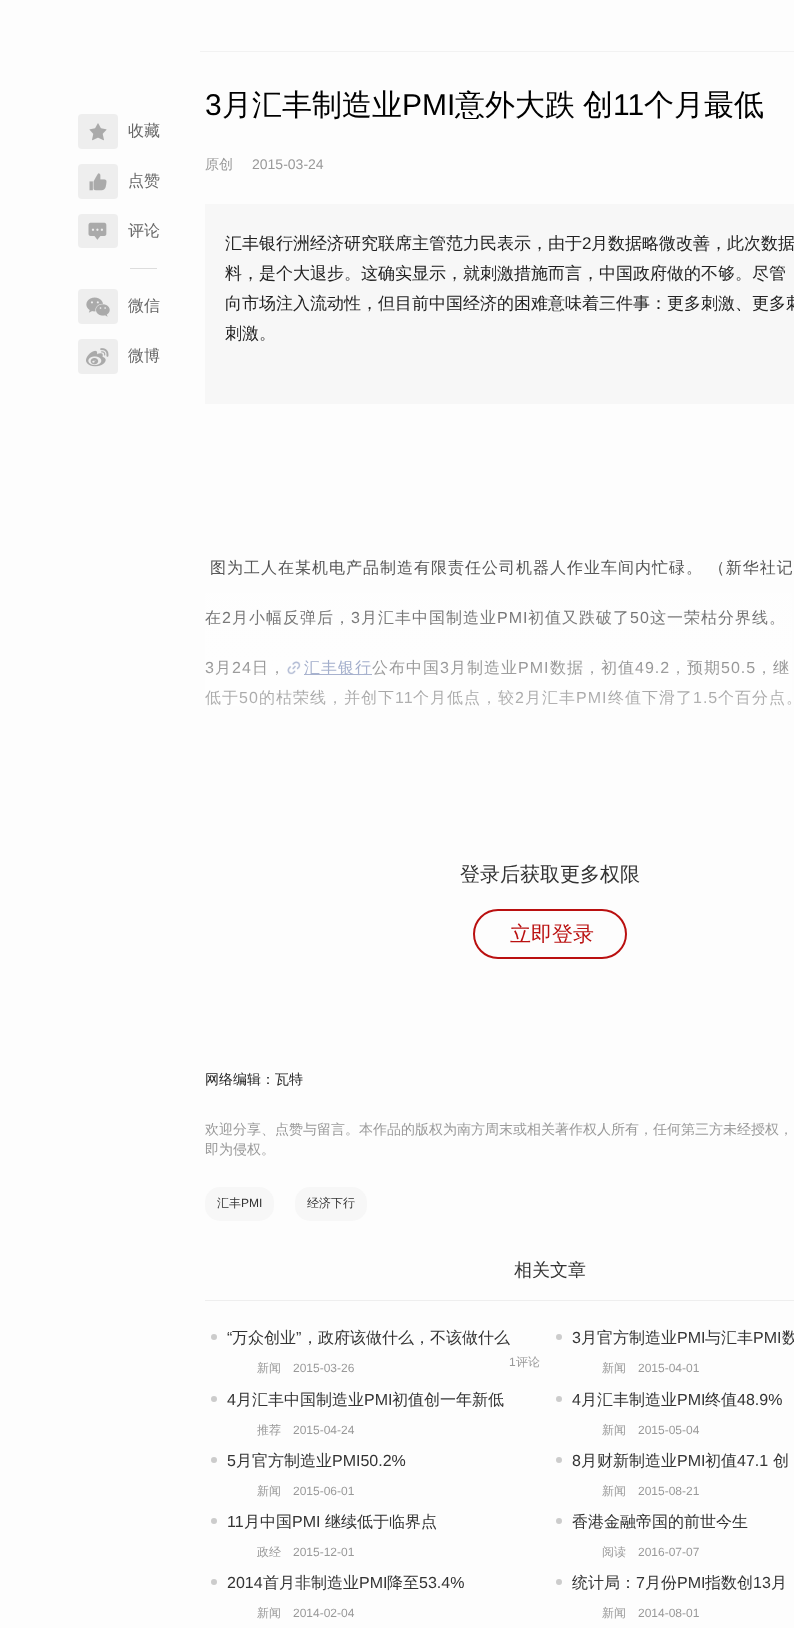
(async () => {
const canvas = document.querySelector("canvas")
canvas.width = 794
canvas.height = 1628
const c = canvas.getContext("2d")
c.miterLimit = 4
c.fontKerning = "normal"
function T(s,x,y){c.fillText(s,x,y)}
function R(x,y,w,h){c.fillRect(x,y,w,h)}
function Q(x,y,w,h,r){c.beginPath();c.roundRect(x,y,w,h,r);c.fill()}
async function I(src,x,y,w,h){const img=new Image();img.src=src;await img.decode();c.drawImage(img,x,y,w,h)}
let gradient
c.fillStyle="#fdfdfd"
R(0,0,794,1628)
c.fillStyle="#eee"
Q(78,114,40,35,4)
await I("1.png",89,123,18,18)
c.font="500 16px WenQuanYi Zen Hei"
c.fillStyle="#666"
T("收藏",128,136)
c.fillStyle="#eee"
Q(78,164,40,35,4)
await I("2.png",89,173,18,18)
c.fillStyle="#666"
T("点赞",128,186)
c.fillStyle="#eee"
Q(78,214,40,34,4)
await I("3.png",88,222,19,18)
c.fillStyle="#666"
T("评论",128,236)
c.fillStyle="#ddd"
R(130,268,27,1)
c.fillStyle="#eee"
Q(78,289,40,35,4)
await I("4.png",86,297,24,20)
c.fillStyle="#666"
T("微信",128,311)
c.fillStyle="#eee"
Q(78,339,40,35,4)
await I("5.png",86,348,23,19)
c.fillStyle="#666"
T("微博",128,361)
c.fillStyle="#f2f2f2"
R(200,51,594,1)
c.font="30px Liberation Sans"
c.fillStyle="#000"
T("3",205,115)
c.font="500 30px WenQuanYi Zen Hei"
T("月汇丰制造业",222,115)
c.font="30px Liberation Sans"
T("PMI",402,115)
c.font="500 30px WenQuanYi Zen Hei"
T("意外大跌",455,115)
T("创",583,115)
c.font="30px Liberation Sans"
T("11",613,115)
c.font="500 30px WenQuanYi Zen Hei"
T("个月最低",644,115)
c.font="500 14px WenQuanYi Zen Hei"
c.fillStyle="#999"
T("原创",205,169)
c.font="14px Liberation Sans"
T("2015-03-24",252,169)
c.fillStyle="#f7f7f7"
R(205,204,589,200)
c.font="500 17px WenQuanYi Zen Hei"
c.fillStyle="#222"
T("汇丰银行洲经济研究联席主管范力民表示，由于",225,249)
c.font="17px Liberation Sans"
T("2",582,249)
c.font="500 17px WenQuanYi Zen Hei"
T("月数据略微改善，此次数据",591,249)
T("料，是个大退步。这确实显示，就刺激措施而言，中国政府做的不够。尽管",225,279)
T("向市场注入流动性，但目前中国经济的困难意味着三件事：更多刺激、更多刺",225,309)
T("刺激。",225,339)
c.letterSpacing="1px"
c.font="500 16px WenQuanYi Zen Hei"
c.fillStyle="#333"
T("图为工人在某机电产品制造有限责任公司机器人作业车间内忙碌。 （新华社记",210,573)
T("在",205,623)
c.font="16px Liberation Sans"
T("2",222,623)
c.font="500 16px WenQuanYi Zen Hei"
T("月小幅反弹后，",232,623)
c.font="16px Liberation Sans"
T("3",351,623)
c.font="500 16px WenQuanYi Zen Hei"
T("月汇丰中国制造业",361,623)
c.font="16px Liberation Sans"
T("PMI",497,623)
c.font="500 16px WenQuanYi Zen Hei"
T("初值又跌破了",528,623)
c.font="16px Liberation Sans"
T("50",630,623)
c.font="500 16px WenQuanYi Zen Hei"
T("这一荣枯分界线。",650,623)
c.font="16px Liberation Sans"
T("3",205,673)
c.font="500 16px WenQuanYi Zen Hei"
T("月",215,673)
c.font="16px Liberation Sans"
T("24",232,673)
c.font="500 16px WenQuanYi Zen Hei"
T("日，",252,673)
await I("6.png",287,661,14,14)
c.fillStyle="#495f99"
R(304,674,68,1)
T("汇丰银行",304,673)
c.fillStyle="#333"
T("公布中国",372,673)
c.font="16px Liberation Sans"
T("3",440,673)
c.font="500 16px WenQuanYi Zen Hei"
T("月制造业",450,673)
c.font="16px Liberation Sans"
T("PMI",518,673)
c.font="500 16px WenQuanYi Zen Hei"
T("数据，初值",550,673)
c.font="16px Liberation Sans"
T("49.2",635,673)
c.font="500 16px WenQuanYi Zen Hei"
T("，预期",670,673)
c.font="16px Liberation Sans"
T("50.5",721,673)
c.font="500 16px WenQuanYi Zen Hei"
T("，继",756,673)
T("低于",205,703)
c.font="16px Liberation Sans"
T("50",239,703)
c.font="500 16px WenQuanYi Zen Hei"
T("的枯荣线，并创下",259,703)
c.font="16px Liberation Sans"
T("11",395,703)
c.font="500 16px WenQuanYi Zen Hei"
T("个月低点，较",413,703)
c.font="16px Liberation Sans"
T("2",515,703)
c.font="500 16px WenQuanYi Zen Hei"
T("月汇丰",525,703)
c.font="16px Liberation Sans"
T("PMI",576,703)
c.font="500 16px WenQuanYi Zen Hei"
T("终值下滑了",608,703)
c.font="16px Liberation Sans"
T("1.5",693,703)
c.font="500 16px WenQuanYi Zen Hei"
T("个百分点。",718,703)
gradient = c.createLinearGradient(550,818,550,518)
gradient.addColorStop(0,"#fff")
gradient.addColorStop(1,"#ffffff00")
c.fillStyle = gradient
R(205,559,587,147)
c.letterSpacing="0px"
c.font="500 20px WenQuanYi Zen Hei"
c.fillStyle="#333"
T("登录后获取更多权限",460,881)
c.beginPath()
c.roundRect(474,910,152,48,24)
c.strokeStyle="#ba1010"
c.lineWidth=2
c.stroke()
c.font="500 21px WenQuanYi Zen Hei"
c.fillStyle="#ba1010"
T("立即登录",510,941)
c.font="500 14px WenQuanYi Zen Hei"
c.fillStyle="#222"
T("网络编辑：瓦特",205,1084)
c.fillStyle="#999"
T("欢迎分享、点赞与留言。本作品的版权为南方周末或相关著作权人所有，任何第三方未经授权，",205,1134)
T("即为侵权。",205,1154)
c.fillStyle="#f7f7f7"
Q(205,1187,69,34,15)
c.font="500 12px WenQuanYi Zen Hei"
c.fillStyle="#333"
T("汇丰",217,1207)
c.font="12px Liberation Sans"
T("PMI",241,1207)
c.fillStyle="#f7f7f7"
Q(295,1187,72,34,15)
c.font="500 12px WenQuanYi Zen Hei"
c.fillStyle="#333"
T("经济下行",307,1207)
c.fillStyle="#eee"
R(205,1300,589,1)
c.font="500 18px WenQuanYi Zen Hei"
c.fillStyle="#333"
T("相关文章",514,1276)
c.fillStyle="#ccc"
c.beginPath()
c.arc(214,1337,3,0,7)
c.fill()
c.font="16px Liberation Sans"
c.fillStyle="#333"
T("“",227,1343)
c.font="500 16px WenQuanYi Zen Hei"
T("万众创业",232,1343)
c.font="16px Liberation Sans"
T("”",296,1343)
c.font="500 16px WenQuanYi Zen Hei"
T("，政府该做什么，不该做什么",302,1343)
c.font="500 12px WenQuanYi Zen Hei"
c.fillStyle="#999"
T("新闻",257,1372)
c.font="12px Liberation Sans"
T("2015-03-26",293,1372)
T("1",509,1366)
c.font="500 12px WenQuanYi Zen Hei"
T("评论",516,1366)
c.fillStyle="#ccc"
c.beginPath()
c.arc(559,1337,3,0,7)
c.fill()
c.font="16px Liberation Sans"
c.fillStyle="#333"
T("3",572,1343)
c.font="500 16px WenQuanYi Zen Hei"
T("月官方制造业",581,1343)
c.font="16px Liberation Sans"
T("PMI",677,1343)
c.font="500 16px WenQuanYi Zen Hei"
T("与汇丰",705,1343)
c.font="16px Liberation Sans"
T("PMI",753,1343)
c.font="500 16px WenQuanYi Zen Hei"
T("数",782,1343)
c.font="500 12px WenQuanYi Zen Hei"
c.fillStyle="#999"
T("新闻",602,1372)
c.font="12px Liberation Sans"
T("2015-04-01",638,1372)
c.fillStyle="#ccc"
c.beginPath()
c.arc(214,1399,3,0,7)
c.fill()
c.font="16px Liberation Sans"
c.fillStyle="#333"
T("4",227,1405)
c.font="500 16px WenQuanYi Zen Hei"
T("月汇丰中国制造业",236,1405)
c.font="16px Liberation Sans"
T("PMI",364,1405)
c.font="500 16px WenQuanYi Zen Hei"
T("初值创一年新低",392,1405)
c.font="500 12px WenQuanYi Zen Hei"
c.fillStyle="#999"
T("推荐",257,1434)
c.font="12px Liberation Sans"
T("2015-04-24",293,1434)
c.fillStyle="#ccc"
c.beginPath()
c.arc(559,1399,3,0,7)
c.fill()
c.font="16px Liberation Sans"
c.fillStyle="#333"
T("4",572,1405)
c.font="500 16px WenQuanYi Zen Hei"
T("月汇丰制造业",581,1405)
c.font="16px Liberation Sans"
T("PMI",677,1405)
c.font="500 16px WenQuanYi Zen Hei"
T("终值",705,1405)
c.font="16px Liberation Sans"
T("48.9%",737,1405)
c.font="500 12px WenQuanYi Zen Hei"
c.fillStyle="#999"
T("新闻",602,1434)
c.font="12px Liberation Sans"
T("2015-05-04",638,1434)
c.fillStyle="#ccc"
c.beginPath()
c.arc(214,1460,3,0,7)
c.fill()
c.font="16px Liberation Sans"
c.fillStyle="#333"
T("5",227,1466)
c.font="500 16px WenQuanYi Zen Hei"
T("月官方制造业",236,1466)
c.font="16px Liberation Sans"
T("PMI50.2%",332,1466)
c.font="500 12px WenQuanYi Zen Hei"
c.fillStyle="#999"
T("新闻",257,1495)
c.font="12px Liberation Sans"
T("2015-06-01",293,1495)
c.fillStyle="#ccc"
c.beginPath()
c.arc(559,1460,3,0,7)
c.fill()
c.font="16px Liberation Sans"
c.fillStyle="#333"
T("8",572,1466)
c.font="500 16px WenQuanYi Zen Hei"
T("月财新制造业",581,1466)
c.font="16px Liberation Sans"
T("PMI",677,1466)
c.font="500 16px WenQuanYi Zen Hei"
T("初值",705,1466)
c.font="16px Liberation Sans"
T("47.1",737,1466)
c.font="500 16px WenQuanYi Zen Hei"
T("创",773,1466)
c.font="500 12px WenQuanYi Zen Hei"
c.fillStyle="#999"
T("新闻",602,1495)
c.font="12px Liberation Sans"
T("2015-08-21",638,1495)
c.fillStyle="#ccc"
c.beginPath()
c.arc(214,1521,3,0,7)
c.fill()
c.font="16px Liberation Sans"
c.fillStyle="#333"
T("11",227,1527)
c.font="500 16px WenQuanYi Zen Hei"
T("月中国",244,1527)
c.font="16px Liberation Sans"
T("PMI",292,1527)
c.font="500 16px WenQuanYi Zen Hei"
T("继续低于临界点",325,1527)
c.font="500 12px WenQuanYi Zen Hei"
c.fillStyle="#999"
T("政经",257,1556)
c.font="12px Liberation Sans"
T("2015-12-01",293,1556)
c.fillStyle="#ccc"
c.beginPath()
c.arc(559,1521,3,0,7)
c.fill()
c.font="500 16px WenQuanYi Zen Hei"
c.fillStyle="#333"
T("香港金融帝国的前世今生",572,1527)
c.font="500 12px WenQuanYi Zen Hei"
c.fillStyle="#999"
T("阅读",602,1556)
c.font="12px Liberation Sans"
T("2016-07-07",638,1556)
c.fillStyle="#ccc"
c.beginPath()
c.arc(214,1582,3,0,7)
c.fill()
c.font="16px Liberation Sans"
c.fillStyle="#333"
T("2014",227,1588)
c.font="500 16px WenQuanYi Zen Hei"
T("首月非制造业",263,1588)
c.font="16px Liberation Sans"
T("PMI",359,1588)
c.font="500 16px WenQuanYi Zen Hei"
T("降至",387,1588)
c.font="16px Liberation Sans"
T("53.4%",419,1588)
c.font="500 12px WenQuanYi Zen Hei"
c.fillStyle="#999"
T("新闻",257,1617)
c.font="12px Liberation Sans"
T("2014-02-04",293,1617)
c.fillStyle="#ccc"
c.beginPath()
c.arc(559,1582,3,0,7)
c.fill()
c.font="500 16px WenQuanYi Zen Hei"
c.fillStyle="#333"
T("统计局：",572,1588)
c.font="16px Liberation Sans"
T("7",636,1588)
c.font="500 16px WenQuanYi Zen Hei"
T("月份",645,1588)
c.font="16px Liberation Sans"
T("PMI",677,1588)
c.font="500 16px WenQuanYi Zen Hei"
T("指数创",705,1588)
c.font="16px Liberation Sans"
T("13",753,1588)
c.font="500 16px WenQuanYi Zen Hei"
T("月",771,1588)
c.font="500 12px WenQuanYi Zen Hei"
c.fillStyle="#999"
T("新闻",602,1617)
c.font="12px Liberation Sans"
T("2014-08-01",638,1617)
})()
